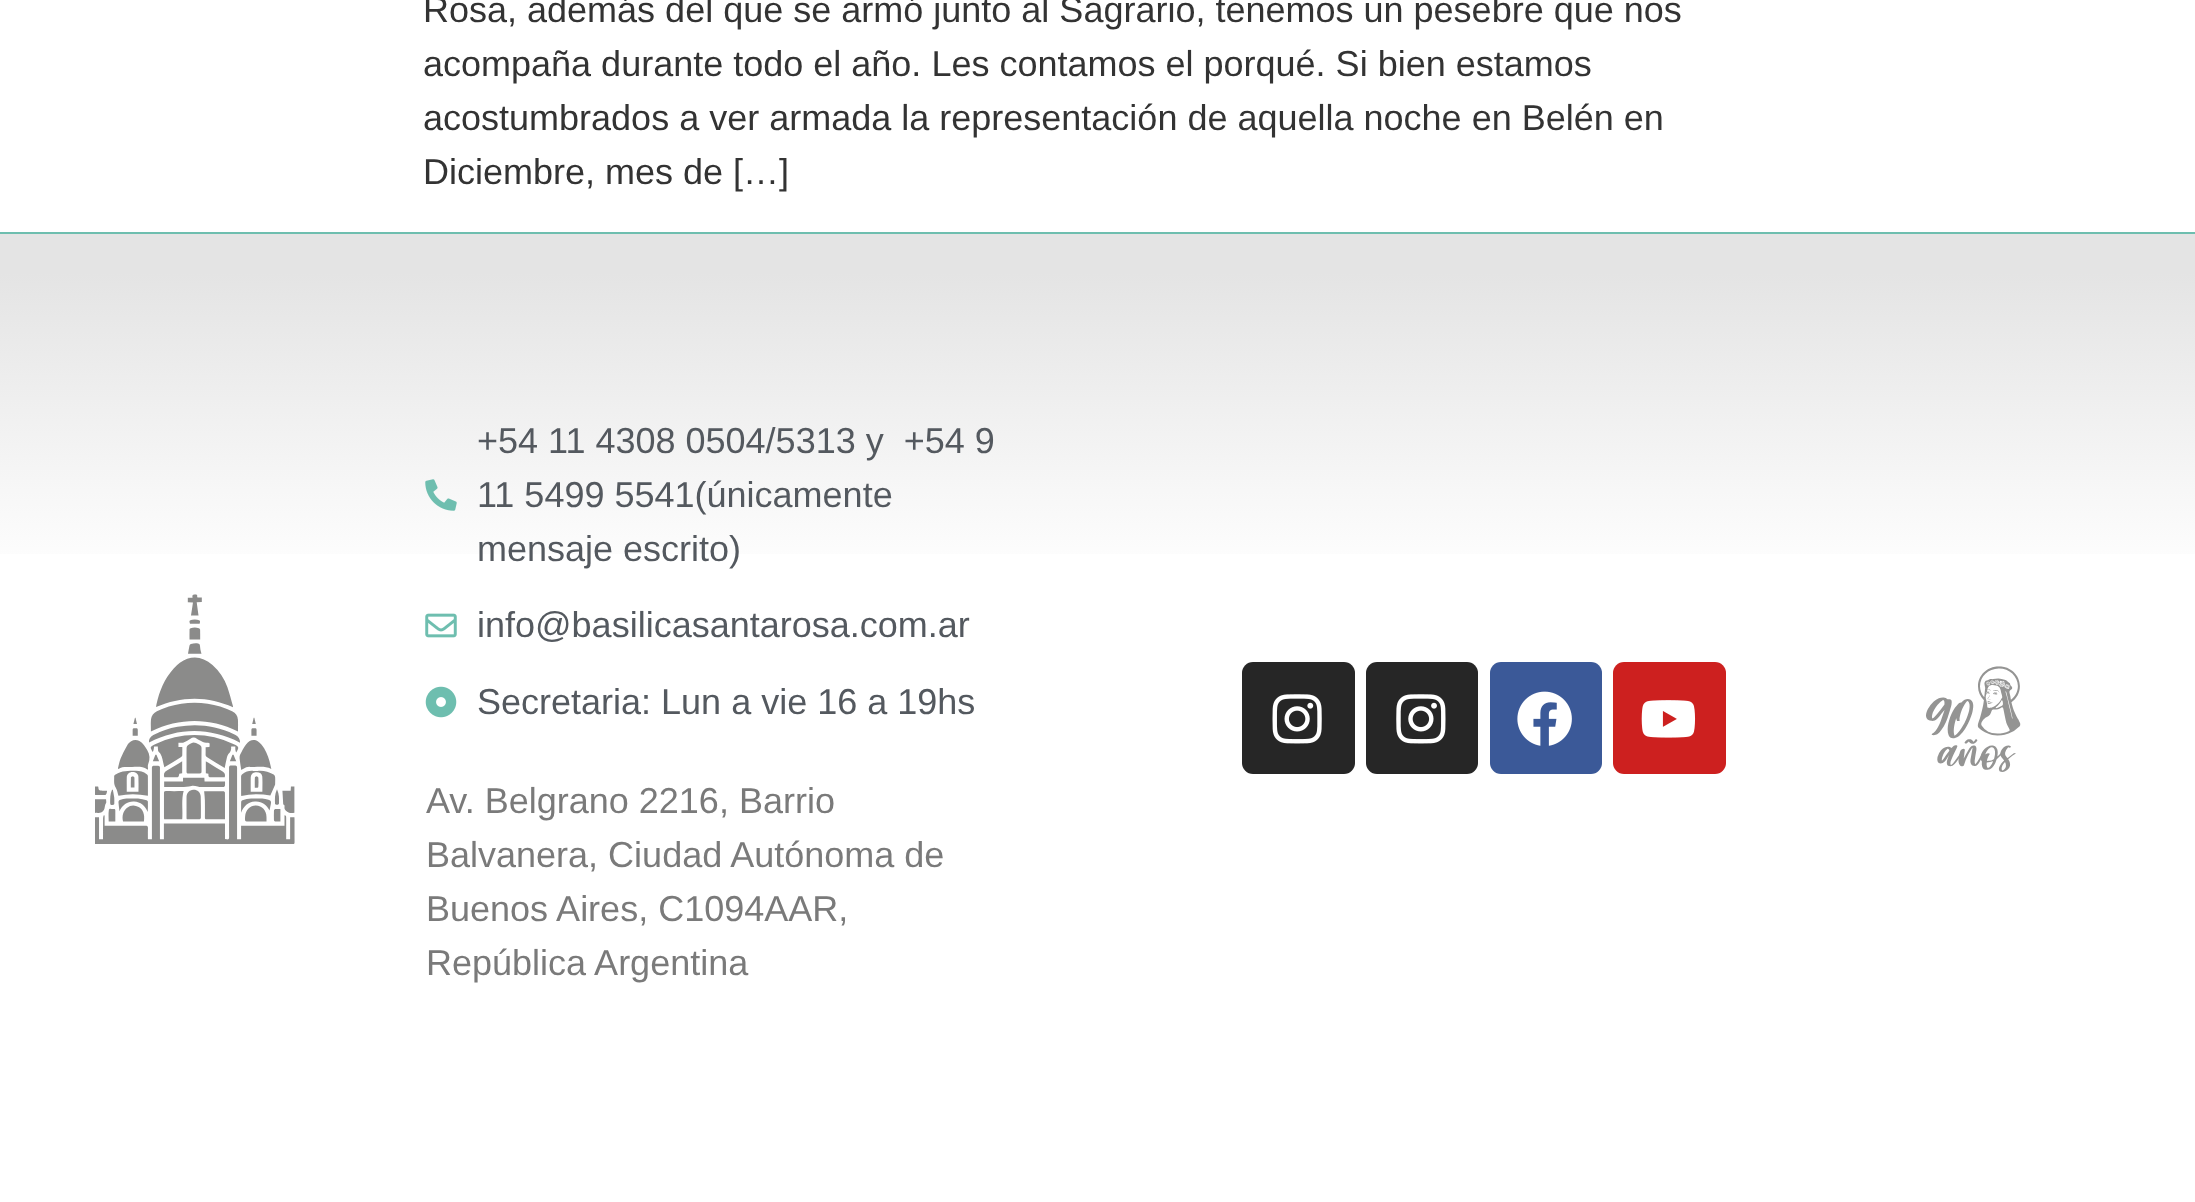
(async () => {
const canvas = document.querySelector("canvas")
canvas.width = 2195
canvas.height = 1202
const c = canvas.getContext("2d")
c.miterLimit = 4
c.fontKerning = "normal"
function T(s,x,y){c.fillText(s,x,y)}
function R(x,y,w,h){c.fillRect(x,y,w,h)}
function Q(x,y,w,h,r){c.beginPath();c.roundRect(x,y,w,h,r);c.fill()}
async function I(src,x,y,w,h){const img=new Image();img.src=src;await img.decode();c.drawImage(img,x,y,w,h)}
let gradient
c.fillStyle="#fff"
R(0,0,2195,1202)
c.font="36px Liberation Sans"
c.fillStyle="#333"
T("Rosa, además del que se armó junto al Sagrario, tenemos un pesebre que nos",423,22)
T("acompaña durante todo el año. Les contamos el porqué. Si bien estamos",423,76)
T("acostumbrados a ver armada la representación de aquella noche en Belén en",423,130)
T("Diciembre, mes de […]",423,184)
gradient = c.createLinearGradient(1098,234,1098,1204)
gradient.addColorStop(.04,"#e4e4e4")
gradient.addColorStop(.36,"#fff")
c.fillStyle = gradient
R(0,234,2195,320)
c.fillStyle="#6ebeaf"
R(0,232,2195,2)
await I("1.png",95,594,200,250)
await I("2.png",425,479,32,32)
c.fillStyle="#54595f"
T("+54 11 4308 0504/5313 y  +54 9",477,453)
T("11 5499 5541(únicamente",477,507)
T("mensaje escrito)",477,561)
await I("3.png",425,613,32,25)
T("info@basilicasantarosa.com.ar",477,637)
await I("4.png",425,686,32,32)
T("Secretaria: Lun a vie 16 a 19hs",477,714)
c.fillStyle="#7a7a7a"
T("Av. Belgrano 2216, Barrio",426,813)
T("Balvanera, Ciudad Autónoma de",426,867)
T("Buenos Aires, C1094AAR,",426,921)
T("República Argentina",426,975)
c.fillStyle="#262626"
Q(1242,662,113,112,11)
await I("5.png",1272,694,50,50)
Q(1366,662,112,112,11)
await I("6.png",1396,694,50,50)
c.fillStyle="#3b5998"
Q(1490,662,112,112,11)
await I("7.png",1517,691,55,55)
c.fillStyle="#cd201f"
Q(1613,662,113,112,11)
await I("8.png",1641,700,55,38)
await I("9.png",1926,666,95,106)
})()
